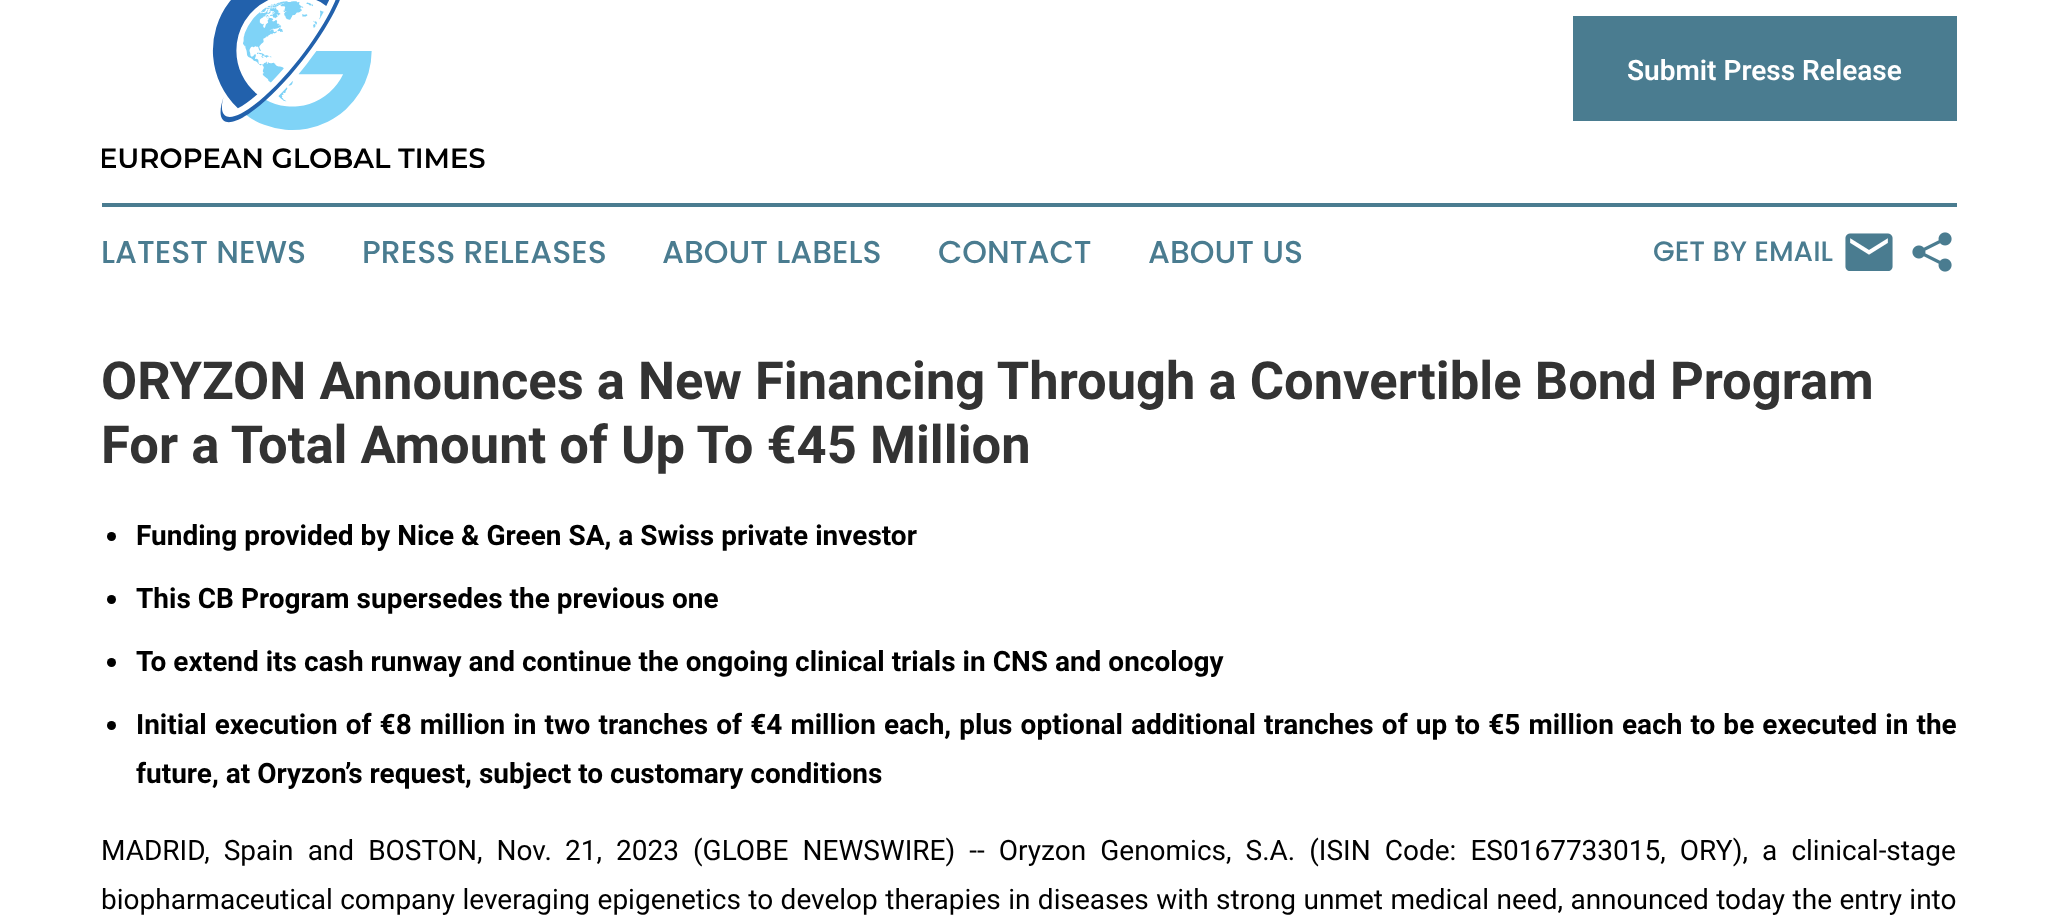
(async () => {
const canvas = document.querySelector("canvas")
canvas.width = 2055
canvas.height = 920
const c = canvas.getContext("2d")
c.miterLimit = 4
c.fontKerning = "normal"
function T(s,x,y){c.fillText(s,x,y)}
function R(x,y,w,h){c.fillRect(x,y,w,h)}
async function I(src,x,y,w,h){const img=new Image();img.src=src;await img.decode();c.drawImage(img,x,y,w,h)}
c.fillStyle="#fff"
R(0,0,2055,920)
await I("1.png",102,0,383,168)
c.fillStyle="#4a7c90"
R(1573,16,384,105)
c.font="600 28px Roboto"
c.fillStyle="#fff"
T("Submit Press Release",1627,80)
c.fillStyle="#4a7c90"
R(102,203,1855,4)
c.font="500 31.5px Poppins"
T("LATEST NEWS",101,263)
T("PRESS RELEASES",362,263)
T("ABOUT LABELS",662,263)
T("CONTACT",938,263)
T("ABOUT US",1148,263)
c.font="500 28px Poppins"
T("GET BY EMAIL",1653,261)
await I("2.png",1845,233,48,38)
await I("3.png",1912,232,40,40)
c.font="bold 52.5px Roboto"
c.fillStyle="#333"
T("ORYZON Announces a New Financing Through a Convertible Bond Program",101,399)
T("For a Total Amount of Up To €45 Million",101,463)
c.fillStyle="#000"
c.beginPath()
c.arc(111.5,536.5,4.5,0,7)
c.fill()
c.font="bold 28px Roboto"
T("Funding provided by Nice & Green SA, a Swiss private investor",136,545)
c.beginPath()
c.arc(111.5,599.5,4.5,0,7)
c.fill()
T("This CB Program supersedes the previous one",136,608)
c.beginPath()
c.arc(111.5,662.5,4.5,0,7)
c.fill()
T("To extend its cash runway and continue the ongoing clinical trials in CNS and oncology",136,671)
c.beginPath()
c.arc(111.5,725.5,4.5,0,7)
c.fill()
c.wordSpacing="1.1px"
T("Initial execution of €8 million in two tranches of €4 million each, plus optional additional tranches of up to €5 million each to be executed in the",136,734)
c.wordSpacing="0px"
T("future, at Oryzon’s request, subject to customary conditions",136,783)
c.wordSpacing="7.1px"
c.font="28px Roboto"
T("MADRID, Spain and BOSTON, Nov.",101,860)
T("21, 2023",565,860)
T("(GLOBE NEWSWIRE) -- Oryzon Genomics, S.A. (ISIN Code: ES0167733015, ORY), a clinical-stage",693,860)
c.wordSpacing="0.5px"
T("biopharmaceutical company leveraging epigenetics to develop therapies in diseases with strong unmet medical need, announced today the entry into",101,909)
})()
